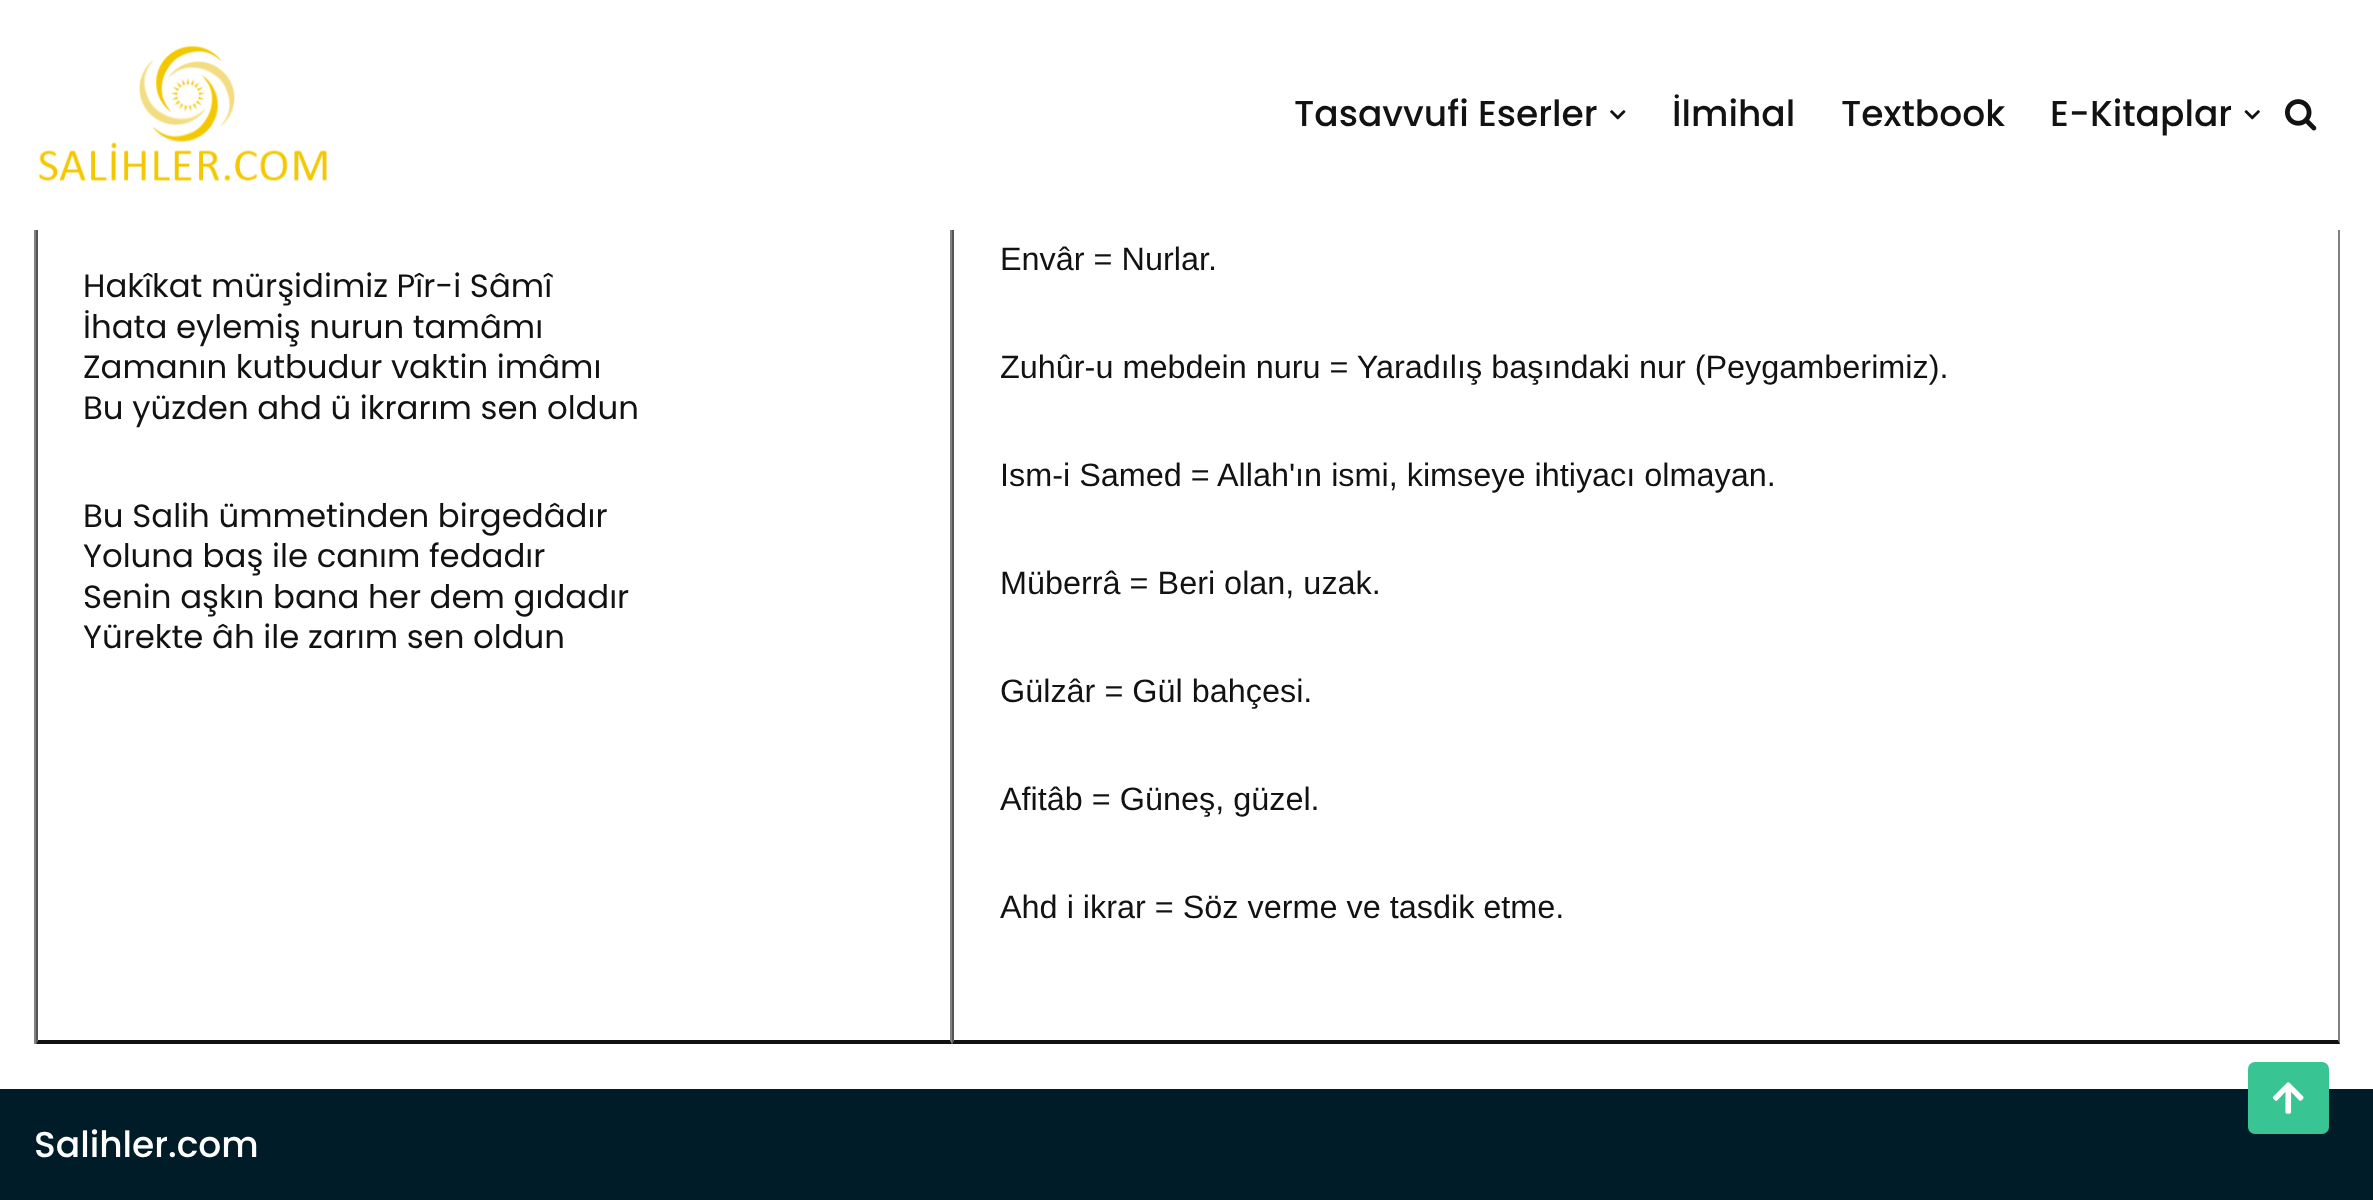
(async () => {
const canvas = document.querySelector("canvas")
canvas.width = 2373
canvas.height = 1200
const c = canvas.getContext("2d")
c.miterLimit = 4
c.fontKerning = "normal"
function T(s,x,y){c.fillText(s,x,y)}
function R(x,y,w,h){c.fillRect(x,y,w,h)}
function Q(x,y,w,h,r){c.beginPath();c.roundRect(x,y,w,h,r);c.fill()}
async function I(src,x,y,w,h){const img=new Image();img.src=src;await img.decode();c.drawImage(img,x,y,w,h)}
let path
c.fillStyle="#fff"
R(0,0,2373,1200)
c.fillStyle="#808080"
path = new Path2D("M952-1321v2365l-2-4v-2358z")
c.fill(path)
c.fillStyle="#121212"
path = new Path2D("M952 1044h-916l2-4h912z")
c.fill(path)
c.fillStyle="#555"
path = new Path2D("M36 1044v-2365l2 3v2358z")
c.fill(path)
c.fillStyle="#808080"
path = new Path2D("M2340-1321v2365l-2-4v-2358z")
c.fill(path)
c.fillStyle="#121212"
path = new Path2D("M2340 1044h-1388l2-4h1384z")
c.fill(path)
c.fillStyle="#555"
path = new Path2D("M952 1044v-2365l2 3v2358z")
c.fill(path)
c.fillStyle="#fff"
R(36,0,2304,230)
await I("1.png",38,46,289,135)
c.font="500 36px Poppins"
c.fillStyle="#121212"
T("Tasavvufi Eserler",1294,126)
await I("2.png",1610,110,16,10)
T("İlmihal",1672,126)
T("Textbook",1841,126)
T("E-Kitaplar",2050,126)
await I("3.png",2244,110,16,10)
await I("4.png",2285,99,32,32)
c.fillStyle="#808080"
R(34,230,2,814)
c.font="32.4px Poppins"
c.fillStyle="#121212"
T("Hakîkat mürşidimiz Pîr-i Sâmî",83,297)
T("İhata eylemiş nurun tamâmı",83,338)
T("Zamanın kutbudur vaktin imâmı",83,378)
T("Bu yüzden ahd ü ikrarım sen oldun",83,419)
T("Bu Salih ümmetinden birgedâdır",83,527)
T("Yoluna baş ile canım fedadır",83,567)
T("Senin aşkın bana her dem gıdadır",83,608)
T("Yürekte âh ile zarım sen oldun",83,648)
c.font="32.4px Liberation Sans"
T("Envâr = Nurlar.",1000,270)
T("Zuhûr-u mebdein nuru = Yaradılış başındaki nur (Peygamberimiz).",1000,378)
T("Ism-i Samed = Allah'ın ismi, kimseye ihtiyacı olmayan.",1000,486)
T("Müberrâ = Beri olan, uzak.",1000,594)
T("Gülzâr = Gül bahçesi.",1000,702)
T("Afitâb = Güneş, güzel.",1000,810)
T("Ahd i ikrar = Söz verme ve tasdik etme.",1000,918)
c.fillStyle="#001c28"
R(0,1089,2373,111)
c.fillStyle="#38c493"
Q(2248,1062,81,72,7)
await I("5.png",2272,1082,32,32)
c.font="500 36px Poppins"
c.fillStyle="#fff"
T("Salihler.com",34,1157)
})()
